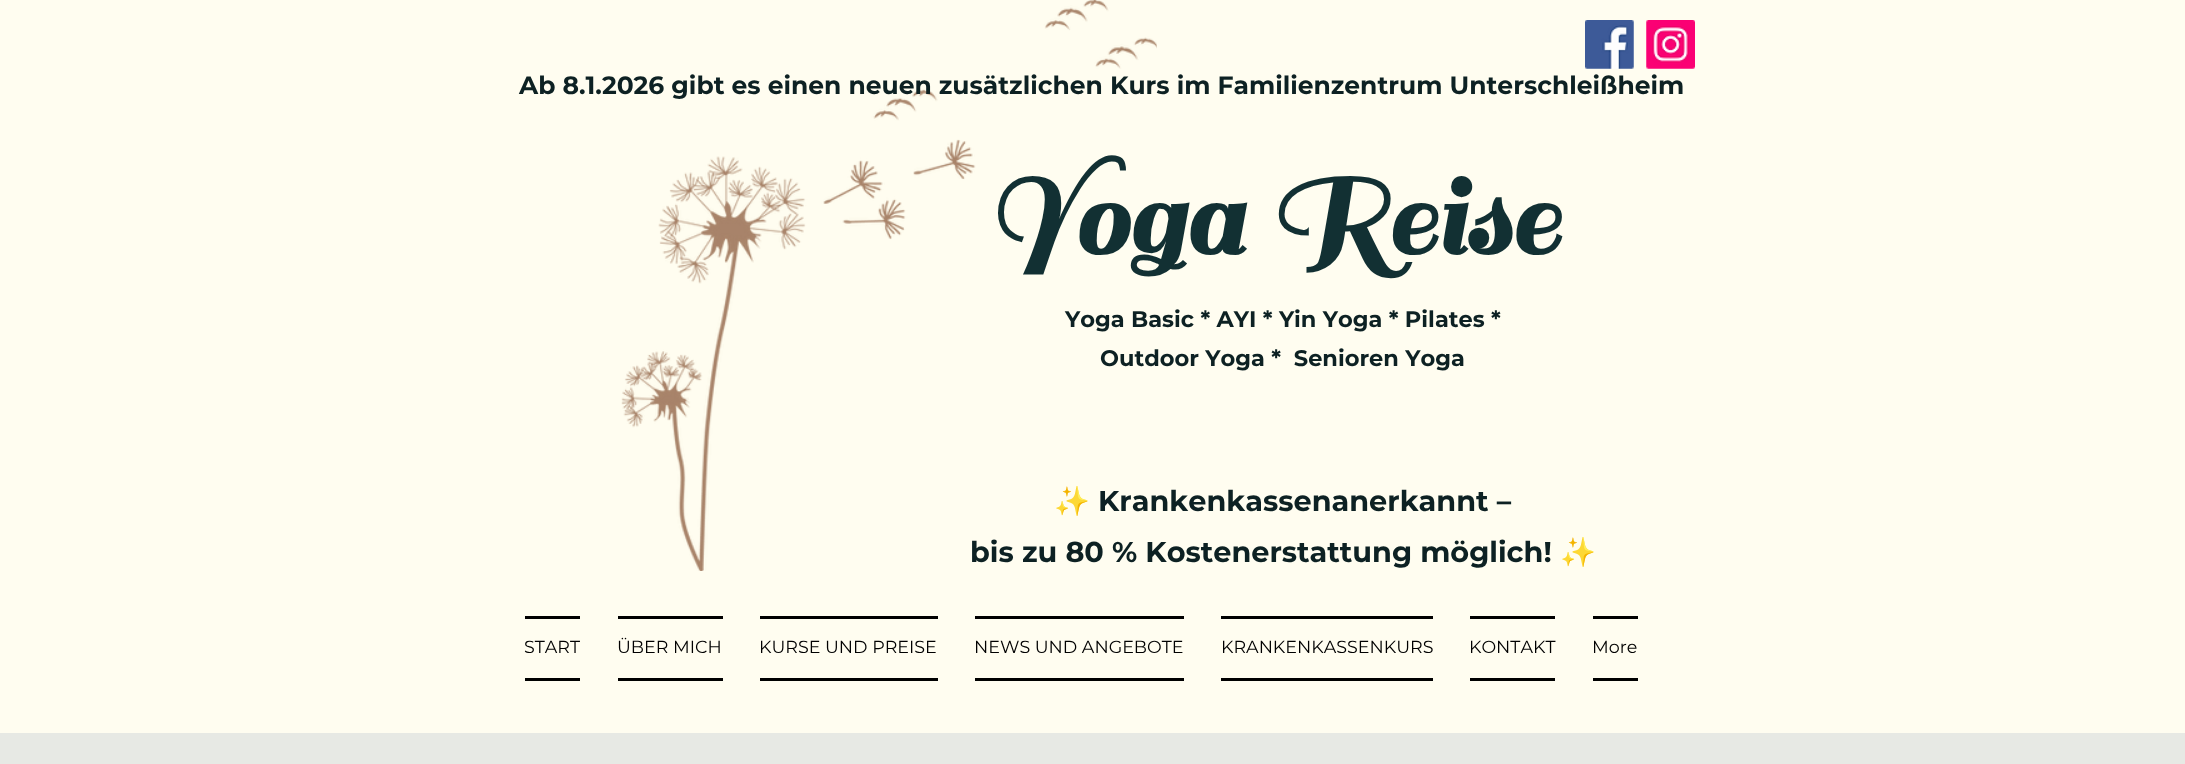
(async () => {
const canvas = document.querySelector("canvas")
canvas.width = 2185
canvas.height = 764
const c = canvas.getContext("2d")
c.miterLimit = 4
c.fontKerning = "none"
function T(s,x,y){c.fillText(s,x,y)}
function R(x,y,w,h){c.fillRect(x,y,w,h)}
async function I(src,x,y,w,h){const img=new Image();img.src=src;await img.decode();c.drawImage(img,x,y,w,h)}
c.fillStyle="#fffdf0"
R(0,0,2185,764)
await I("1.png",621,0,536,571)
await I("2.png",1585,20,49,49)
await I("3.png",1646,20,49,49)
c.font="bold 25px Montserrat"
c.fillStyle="#0d2123"
T("Ab 8.1.2026 gibt es einen neuen zusätzlichen Kurs im Familienzentrum Unterschleißheim",519,94)
c.font="bold 122.5px Sail"
c.fillStyle="#123033"
T("Yoga Reise",985,254)
c.font="bold 22.5px Montserrat"
c.fillStyle="#0d2123"
T("Yoga Basic * AYI * Yin Yoga * Pilates *",1065,327)
T("Outdoor Yoga *  Senioren Yoga",1100,366)
c.font="bold 28.75px Noto Color Emoji"
T("✨",1054,511)
c.font="bold 28.75px Montserrat"
T("Krankenkassenanerkannt –",1098,511)
T("bis zu 80 % Kostenerstattung möglich!",970,562)
c.font="bold 28.75px Noto Color Emoji"
T("✨",1560,562)
c.fillStyle="#000"
R(525,616,55,3)
R(525,678,55,3)
c.font="17.5px Montserrat"
T("START",524,653)
R(618,616,105,3)
R(618,678,105,3)
T("ÜBER MICH",617,653)
R(760,616,178,3)
R(760,678,178,3)
T("KURSE UND PREISE",759,653)
R(975,616,209,3)
R(975,678,209,3)
T("NEWS UND ANGEBOTE",974,653)
R(1221,616,212,3)
R(1221,678,212,3)
T("KRANKENKASSENKURS",1221,653)
R(1470,616,85,3)
R(1470,678,85,3)
T("KONTAKT",1469,653)
R(1593,616,45,3)
R(1593,678,45,3)
T("More",1592,653)
c.fillStyle="#e7e9e4"
R(0,733,2185,31)
})()
